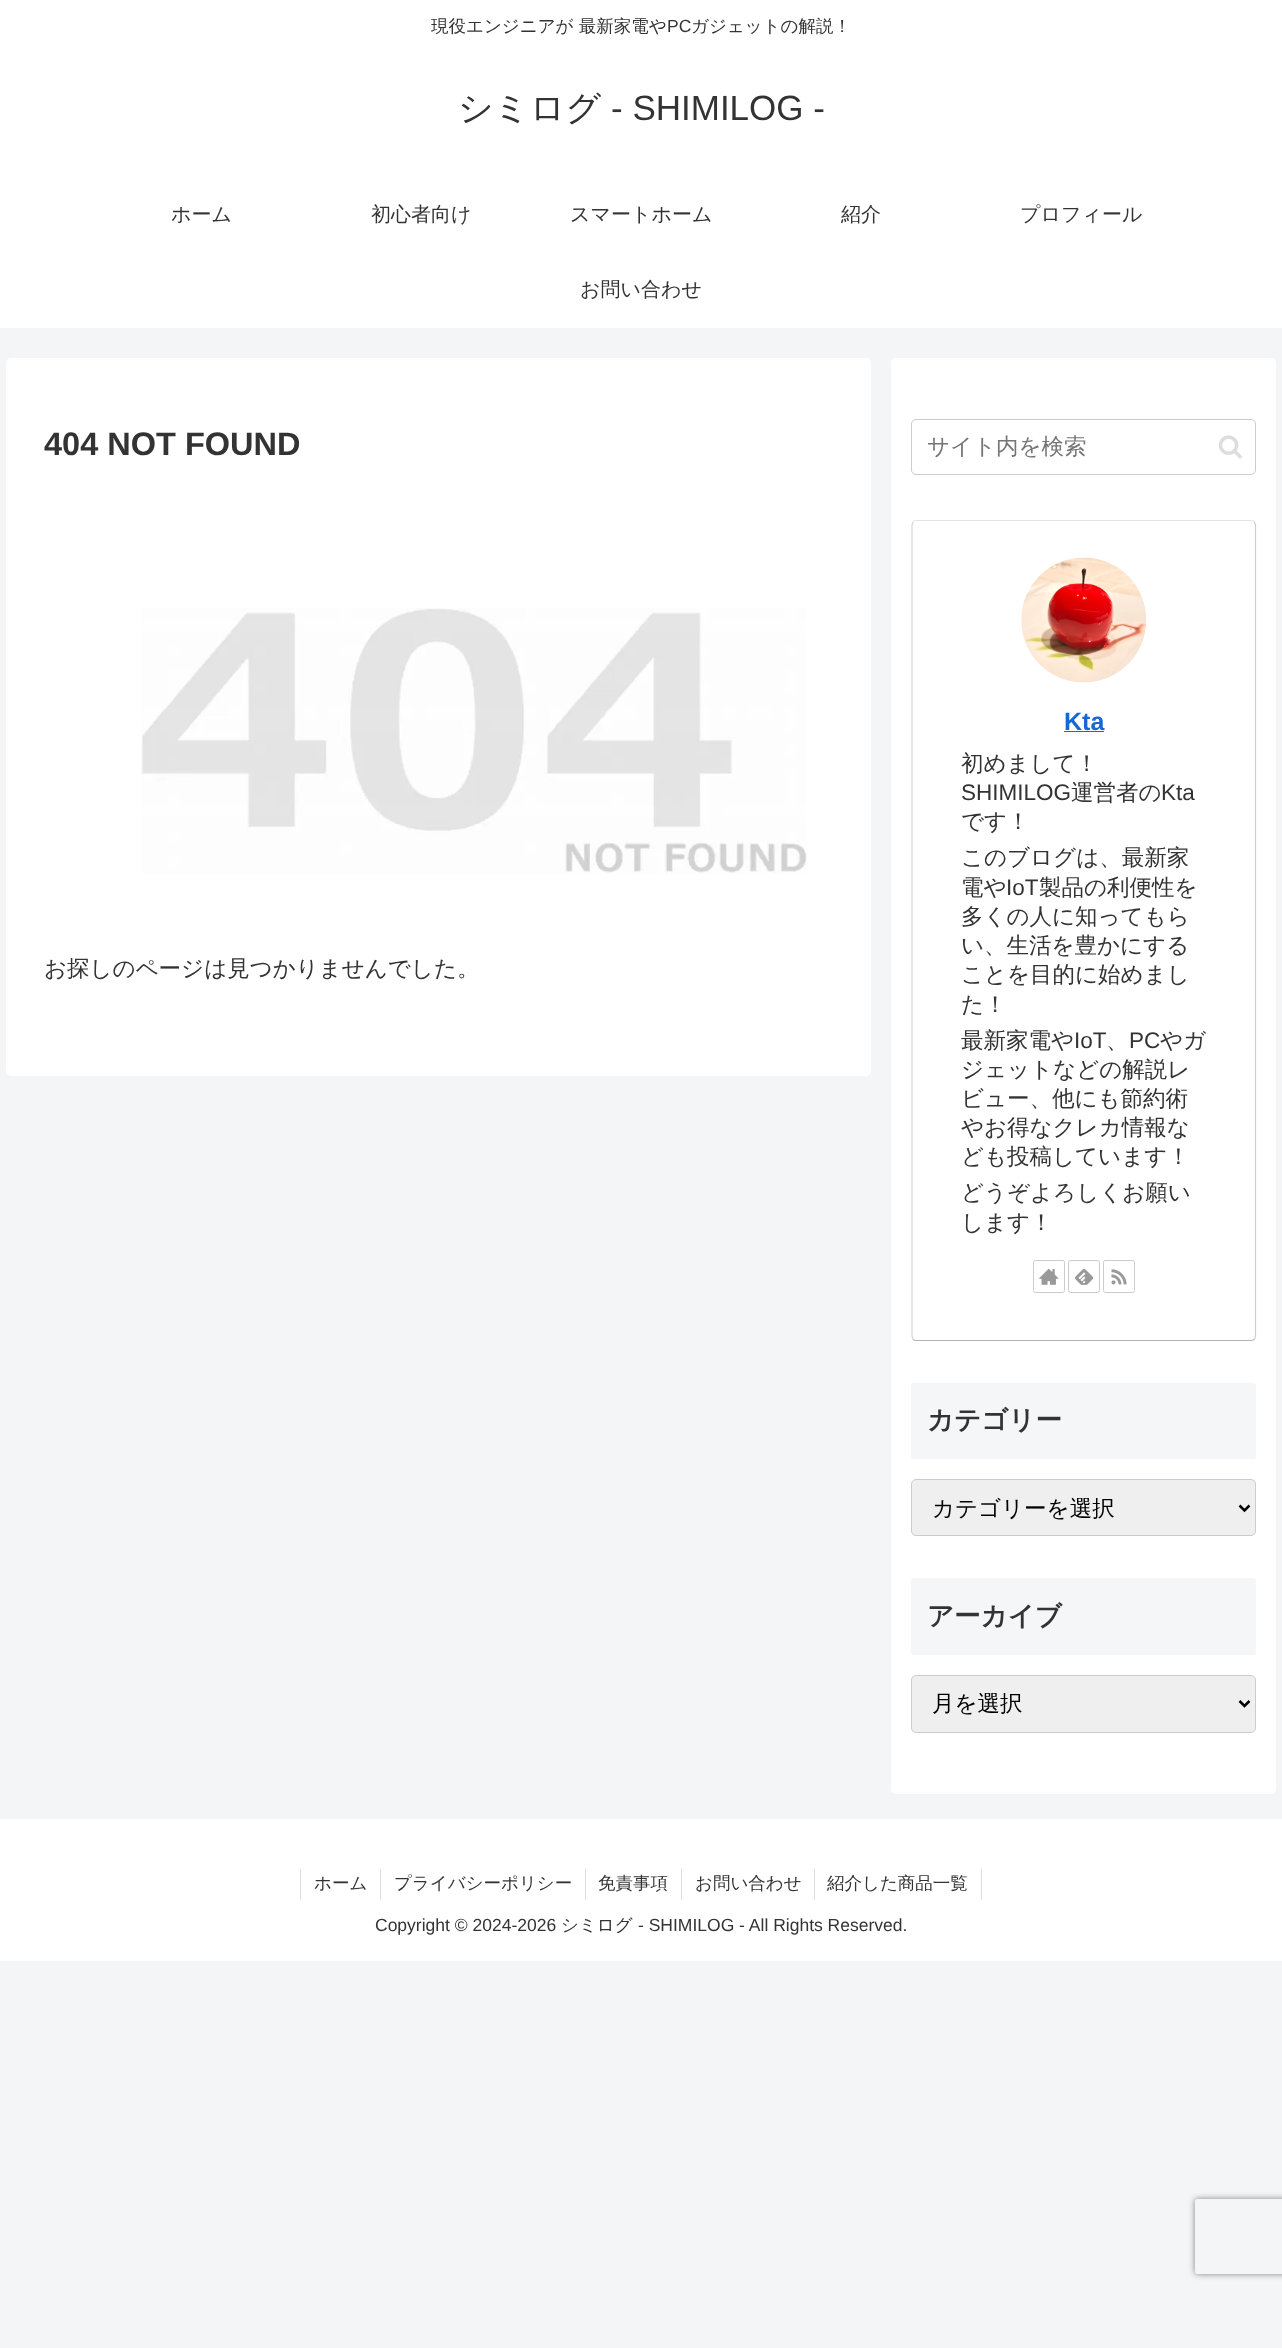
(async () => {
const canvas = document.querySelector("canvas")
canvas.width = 1282
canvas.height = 2348
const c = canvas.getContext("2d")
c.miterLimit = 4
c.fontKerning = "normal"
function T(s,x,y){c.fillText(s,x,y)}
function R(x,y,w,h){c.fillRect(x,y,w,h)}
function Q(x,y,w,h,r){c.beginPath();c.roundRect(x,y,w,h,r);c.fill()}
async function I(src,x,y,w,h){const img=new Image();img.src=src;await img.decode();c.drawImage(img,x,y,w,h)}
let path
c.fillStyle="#f4f5f7"
R(0,0,1282,2348)
c.fillStyle="#fff"
R(0,0,1282,328)
c.font="500 17.5px WenQuanYi Zen Hei"
c.fillStyle="#333"
T("現役エンジニアが 最新家電や",431,32)
c.font="17.5px Liberation Sans"
T("PC",667,32)
c.font="500 17.5px WenQuanYi Zen Hei"
T("ガジェットの解説！",691,32)
c.font="500 35px WenQuanYi Zen Hei"
T("シミログ",458,120)
c.font="35px Liberation Sans"
T("- SHIMILOG -",611,120)
c.font="500 20px WenQuanYi Zen Hei"
T("ホーム",171,221)
T("初心者向け",371,221)
T("スマートホーム",570,221)
T("紹介",841,221)
T("プロフィール",1020,221)
T("お問い合わせ",580,296)
c.fillStyle="#fff"
Q(6,358,865,718,5)
c.font="bold 32.5px Liberation Sans"
c.fillStyle="#333"
T("404 NOT FOUND",44,455)
await I("1.png",141,608,666,266)
c.font="500 22.5px WenQuanYi Zen Hei"
T("お探しのページは見つかりませんでした。",44,976)
c.fillStyle="#fff"
Q(891,358,385,1436,5)
c.beginPath()
c.roundRect(911.5,419.5,344,55,4.5)
c.strokeStyle="#ccc"
c.stroke()
c.fillStyle="#757575"
T("サイト内を検索",927,454)
await I("2.png",1218,435,24,24)
path = new Path2D("M913 522c1-1 2-1.5 3-1.5h335c1.5 0 2.5 .5 3.5 1.5")
c.strokeStyle="#e3e3e3"
c.lineWidth=1.2
c.stroke(path)
path = new Path2D("M1254.5 522l1 3v811l-1 3.5")
c.strokeStyle="#cecece"
c.stroke(path)
path = new Path2D("M1254.5 1339.5c-1 .5-2 1-3.5 1h-335c-1 0-2-.5-3-1")
c.strokeStyle="#b4b4b4"
c.stroke(path)
path = new Path2D("M913 1339.5l-1-3.5v-811l1-3")
c.strokeStyle="#d6d6d6"
c.stroke(path)
await I("3.png",1021,557,125,126)
c.font="bold 25px Liberation Sans"
c.fillStyle="#1967d2"
T("Kta",1064,730)
R(1064,731,40,1)
c.font="500 22.5px WenQuanYi Zen Hei"
c.fillStyle="#333"
T("初めまして！",961,771)
c.font="22.5px Liberation Sans"
T("SHIMILOG",961,800)
c.font="500 22.5px WenQuanYi Zen Hei"
T("運営者の",1071,800)
c.font="22.5px Liberation Sans"
T("Kta",1161,800)
c.font="500 22.5px WenQuanYi Zen Hei"
T("です！",961,829)
T("このブログは、最新家",961,865)
T("電や",961,895)
c.font="22.5px Liberation Sans"
T("IoT",1006,895)
c.font="500 22.5px WenQuanYi Zen Hei"
T("製品の利便性を",1039,895)
T("多くの人に知ってもら",961,924)
T("い、生活を豊かにする",961,953)
T("ことを目的に始めまし",961,982)
T("た！",961,1012)
T("最新家電や",961,1048)
c.font="22.5px Liberation Sans"
T("IoT",1074,1048)
c.font="500 22.5px WenQuanYi Zen Hei"
T("、",1106,1048)
c.font="22.5px Liberation Sans"
T("PC",1129,1048)
c.font="500 22.5px WenQuanYi Zen Hei"
T("やガ",1160,1048)
T("ジェットなどの解説レ",961,1077)
T("ビュー、他にも節約術",961,1106)
T("やお得なクレカ情報な",961,1135)
T("ども投稿しています！",961,1164)
T("どうぞよろしくお願い",961,1200)
T("します！",961,1230)
c.beginPath()
c.roundRect(1033.5,1260.5,31,32,2)
c.strokeStyle="#ccc"
c.lineWidth=1
c.stroke()
await I("4.png",1039,1268,20,17)
c.beginPath()
c.roundRect(1068.5,1260.5,31,32,2)
c.stroke()
await I("5.png",1075,1269,18,16)
c.beginPath()
c.roundRect(1103.5,1260.5,31,32,2)
c.stroke()
await I("6.png",1111,1269,16,16)
c.fillStyle="#f5f6f7"
Q(911,1383,345,76,2.5)
c.font="bold 26.5px WenQuanYi Zen Hei"
c.fillStyle="#333"
T("カテゴリー",927,1429)
c.fillStyle="#efefef"
c.beginPath()
c.roundRect(911.5,1479.5,344,56,4.5)
c.fill()
c.stroke()
path = new Path2D("M1239.5 1505.5l5 5l5-5")
c.strokeStyle="#000"
c.lineWidth=2.5
c.stroke(path)
c.font="500 22.5px WenQuanYi Zen Hei"
c.fillStyle="#000"
T("カテゴリーを選択",932,1516)
c.fillStyle="#f5f6f7"
Q(911,1578,345,77,2.5)
c.font="bold 26.5px WenQuanYi Zen Hei"
c.fillStyle="#333"
T("アーカイブ",927,1625)
c.fillStyle="#efefef"
c.beginPath()
c.roundRect(911.5,1675.5,344,57,4.5)
c.fill()
c.strokeStyle="#ccc"
c.lineWidth=1
c.stroke()
path = new Path2D("M1239.5 1701l5 5l5-5")
c.strokeStyle="#000"
c.lineWidth=2.5
c.stroke(path)
c.font="500 22.5px WenQuanYi Zen Hei"
c.fillStyle="#000"
T("月を選択",932,1711)
c.fillStyle="#fff"
R(0,1819,1282,142)
c.fillStyle="#ddd"
R(300,1869,1,31)
c.font="500 17.5px WenQuanYi Zen Hei"
c.fillStyle="#333"
T("ホーム",314,1889)
c.fillStyle="#ddd"
R(380,1869,1,31)
c.fillStyle="#333"
T("プライバシーポリシー",394,1889)
c.fillStyle="#ddd"
R(585,1869,1,31)
c.fillStyle="#333"
T("免責事項",598,1889)
c.fillStyle="#ddd"
R(681,1869,1,31)
c.fillStyle="#333"
T("お問い合わせ",695,1889)
c.fillStyle="#ddd"
R(981,1869,1,31)
R(814,1869,1,31)
c.fillStyle="#333"
T("紹介した商品一覧",827,1889)
c.font="17.5px Liberation Sans"
T("Copyright © 2024-2026",375,1931)
c.font="500 17.5px WenQuanYi Zen Hei"
T("シミログ",561,1931)
c.font="17.5px Liberation Sans"
T("- SHIMILOG - All Rights Reserved.",638,1931)
c.save()
path = new Path2D("M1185 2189h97v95h-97zm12.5 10h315c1.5 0 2.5 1 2.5 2.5v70c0 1.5-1 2.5-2.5 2.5h-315c-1.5 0-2.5-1-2.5-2.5v-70c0-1.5 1-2.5 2.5-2.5z")
c.clip(path,"evenodd")
c.fillStyle="#808080"
c.filter="blur(3px)"
c.beginPath()
c.roundRect(1195,2199,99,75,2.5)
c.fill()
c.filter="none"
c.restore()
})()
